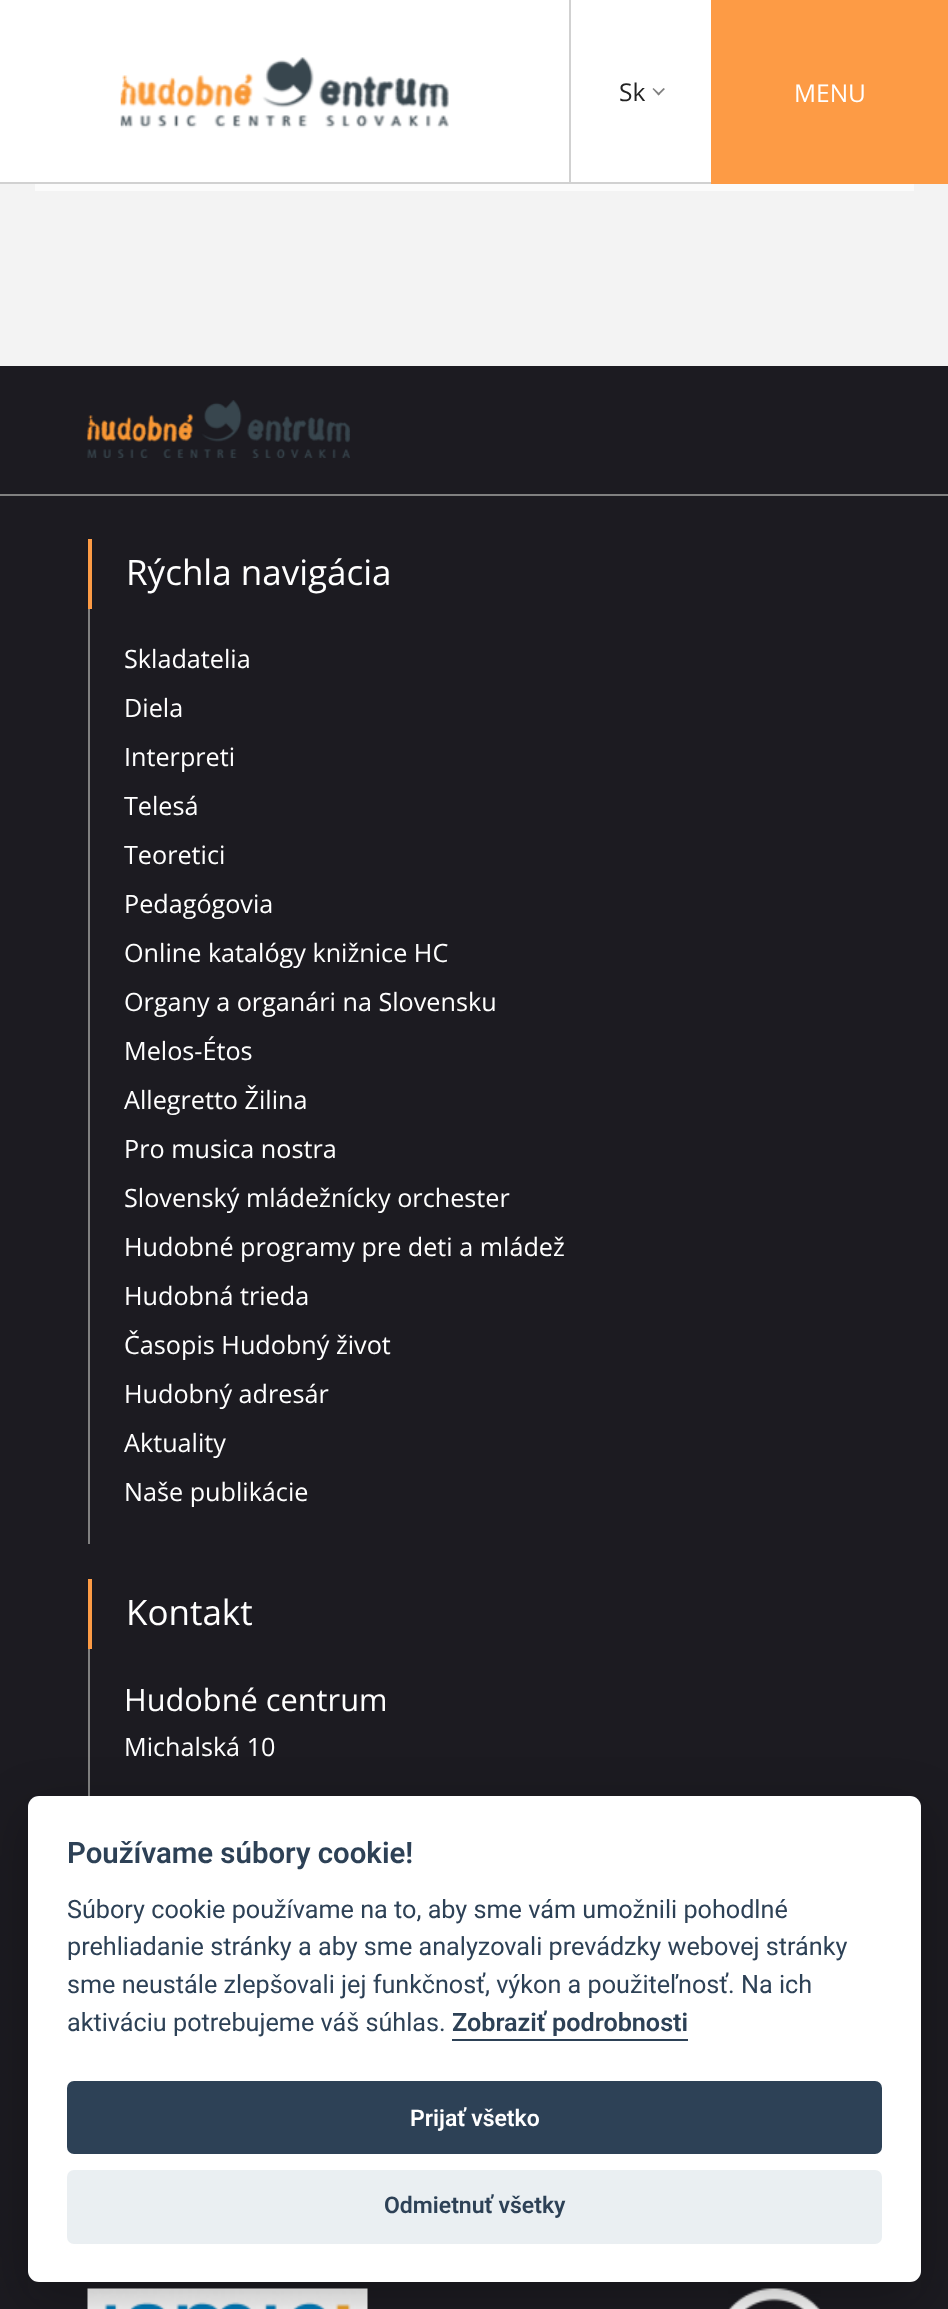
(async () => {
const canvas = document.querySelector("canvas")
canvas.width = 948
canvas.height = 2309
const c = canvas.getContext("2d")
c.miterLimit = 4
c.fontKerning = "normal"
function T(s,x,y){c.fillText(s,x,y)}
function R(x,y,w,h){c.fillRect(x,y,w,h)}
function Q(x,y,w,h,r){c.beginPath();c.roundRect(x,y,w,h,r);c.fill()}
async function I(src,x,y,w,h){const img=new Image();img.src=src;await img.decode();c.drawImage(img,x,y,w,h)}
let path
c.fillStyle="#f3f3f3"
R(0,0,948,2309)
c.fillStyle="#fff"
R(0,0,711,182)
c.fillStyle="#d1d1d1"
R(0,182,711,2)
await I("1.png",120,57,329,71)
R(569,0,2,184)
c.font="24.5px Open Sans"
c.fillStyle="#222"
T("Sk",619,101)
c.fillStyle="#808080"
path = new Path2D("M663.5 88l1.5 1l-6.5 6.5l-1-1.5z")
c.fill(path)
path = new Path2D("M653.5 88l6.5 6l-1.5 1.5l-6-6.5z")
c.fill(path)
c.fillStyle="#fd9b45"
R(711,0,237,184)
c.fillStyle="#fff"
T("MENU",794,102)
c.fillStyle="#fbfbfb"
R(35,184,879,7)
c.fillStyle="#1c1b21"
R(0,366,948,1943)
c.fillStyle="#808080"
R(0,494,948,2)
await I("2.png",87,400,263,58)
c.fillStyle="#fd9b45"
R(88,539,4,70)
c.font="35px Open Sans"
c.fillStyle="#fff"
T("Rýchla navigácia",126,585)
c.fillStyle="#808080"
R(88,609,2,935)
c.font="25.2px Open Sans"
c.fillStyle="#fff"
T("Skladatelia",124,668)
T("Diela",124,717)
T("Interpreti",124,766)
T("Telesá",124,815)
T("Teoretici",124,864)
T("Pedagógovia",124,913)
T("Online katalógy knižnice HC",124,962)
T("Organy a organári na Slovensku",124,1011)
T("Melos-Étos",124,1060)
T("Allegretto Žilina",124,1109)
T("Pro musica nostra",124,1158)
T("Slovenský mládežnícky orchester",124,1207)
T("Hudobné programy pre deti a mládež",124,1256)
T("Hudobná trieda",124,1305)
T("Časopis Hudobný život",124,1354)
T("Hudobný adresár",124,1403)
T("Aktuality",124,1452)
T("Naše publikácie",124,1501)
c.fillStyle="#fd9b45"
R(88,1579,4,70)
c.font="35px Open Sans"
c.fillStyle="#fff"
T("Kontakt",126,1625)
c.fillStyle="#808080"
R(88,1649,2,147)
c.font="30.75px Open Sans"
c.fillStyle="#fff"
T("Hudobné centrum",124,1711)
c.font="25.2px Open Sans"
T("Michalská 10",124,1756)
await I("3.png",87,2288,281,21)
await I("4.png",728,2288,93,21)
c.fillStyle="#02020347"
c.filter="blur(26px)"
c.beginPath()
c.roundRect(28,1813,893,487,11)
c.fill()
c.filter="none"
c.fillStyle="#fff"
Q(28,1796,893,486,11)
c.font="600 29.4px Roboto"
c.fillStyle="#2d4156"
T("Používame súbory cookie!",67,1863)
c.font="25.2px Roboto"
T("Súbory cookie používame na to, aby sme vám umožnili pohodlné",67,1918)
T("prehliadanie stránky a aby sme analyzovali prevádzky webovej stránky",67,1955)
T("sme neustále zlepšovali jej funkčnosť, výkon a použiteľnosť. Na ich",67,1993)
T("aktiváciu potrebujeme váš súhlas.",67,2031)
c.font="600 25.2px Roboto"
T("Zobraziť podrobnosti",452,2031)
R(452,2039,236,2)
Q(67,2081,815,73,7)
c.font="600 23px Roboto"
c.fillStyle="#fff"
T("Prijať všetko",410,2126)
c.fillStyle="#eaeff2"
Q(67,2170,815,74,7)
c.fillStyle="#2d4156"
T("Odmietnuť všetky",384,2213)
})()
